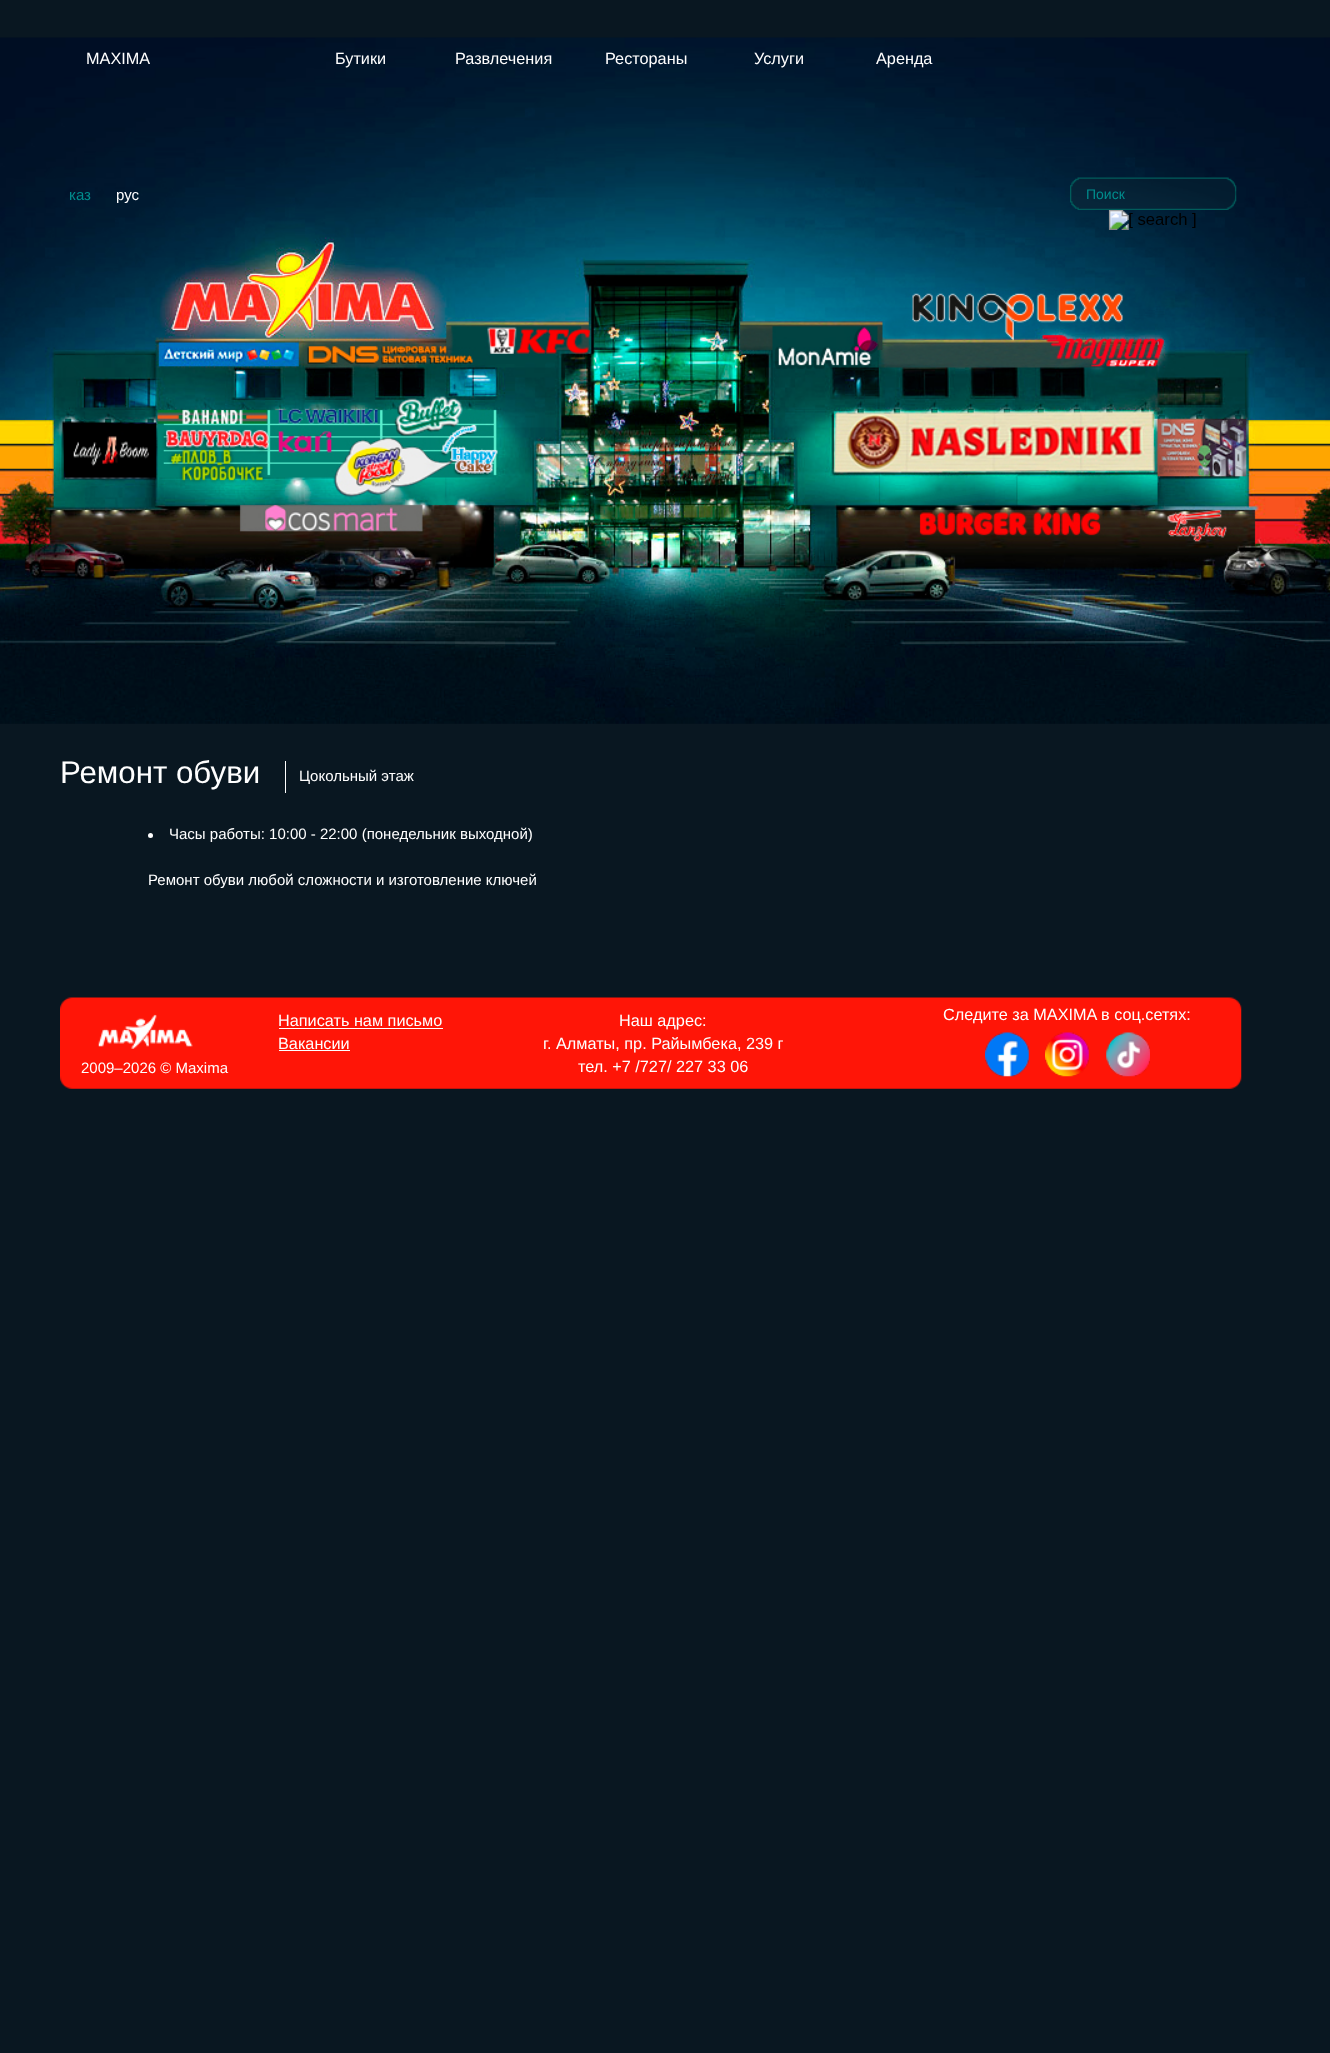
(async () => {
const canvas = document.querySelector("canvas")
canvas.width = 1330
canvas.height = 2053
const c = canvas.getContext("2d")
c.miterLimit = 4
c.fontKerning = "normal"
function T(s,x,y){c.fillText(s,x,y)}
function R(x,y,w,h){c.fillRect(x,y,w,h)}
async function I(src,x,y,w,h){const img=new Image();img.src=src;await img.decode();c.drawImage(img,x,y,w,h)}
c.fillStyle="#091721"
R(0,0,1330,2053)
await I("1.png",0,37,1330,687)
c.font="16.25px Liberation Sans"
c.fillStyle="#fff"
T("MAXIMA",86,64)
T("Бутики",335,64)
T("Развлечения",455,64)
T("Рестораны",605,64)
T("Услуги",754,64)
T("Аренда",876,64)
c.font="15px Liberation Sans"
c.fillStyle="#008d8d"
T("каз",69,200)
c.fillStyle="#fff"
T("рус",116,200)
await I("2.png",1070,177,167,33)
c.font="14px Liberation Sans"
c.fillStyle="#008d8d"
T("Поиск",1086,199)
await I("3.png",1108,210,88,20)
c.font="31.25px Liberation Sans"
c.fillStyle="#fff"
T("Ремонт обуви",60,783)
R(285,761,1,32)
c.font="15px Liberation Sans"
T("Цокольный этаж",299,781)
c.beginPath()
c.arc(150.5,835.5,2.5,0,7)
c.fill()
T("Часы работы: 10:00 - 22:00 (понедельник выходной)",169,839)
T("Ремонт обуви любой сложности и изготовление ключей",148,885)
await I("4.png",60,997,1182,92)
T("2009–2026 © Maxima",81,1073)
c.font="16.25px Liberation Sans"
T("Написать нам письмо",278,1026)
R(279,1028,164,1)
T("Вакансии",278,1049)
R(279,1050,71,1)
T("Наш адрес:",619,1026)
T("г. Алматы, пр. Райымбека, 239 г",543,1049)
T("тел. +7 /727/ 227 33 06",578,1072)
T("Следите за MAXIMA в соц.сетях:",943,1020)
await I("5.png",985,1032,44,45)
await I("6.png",1045,1032,44,45)
await I("7.png",1106,1032,44,45)
})()
